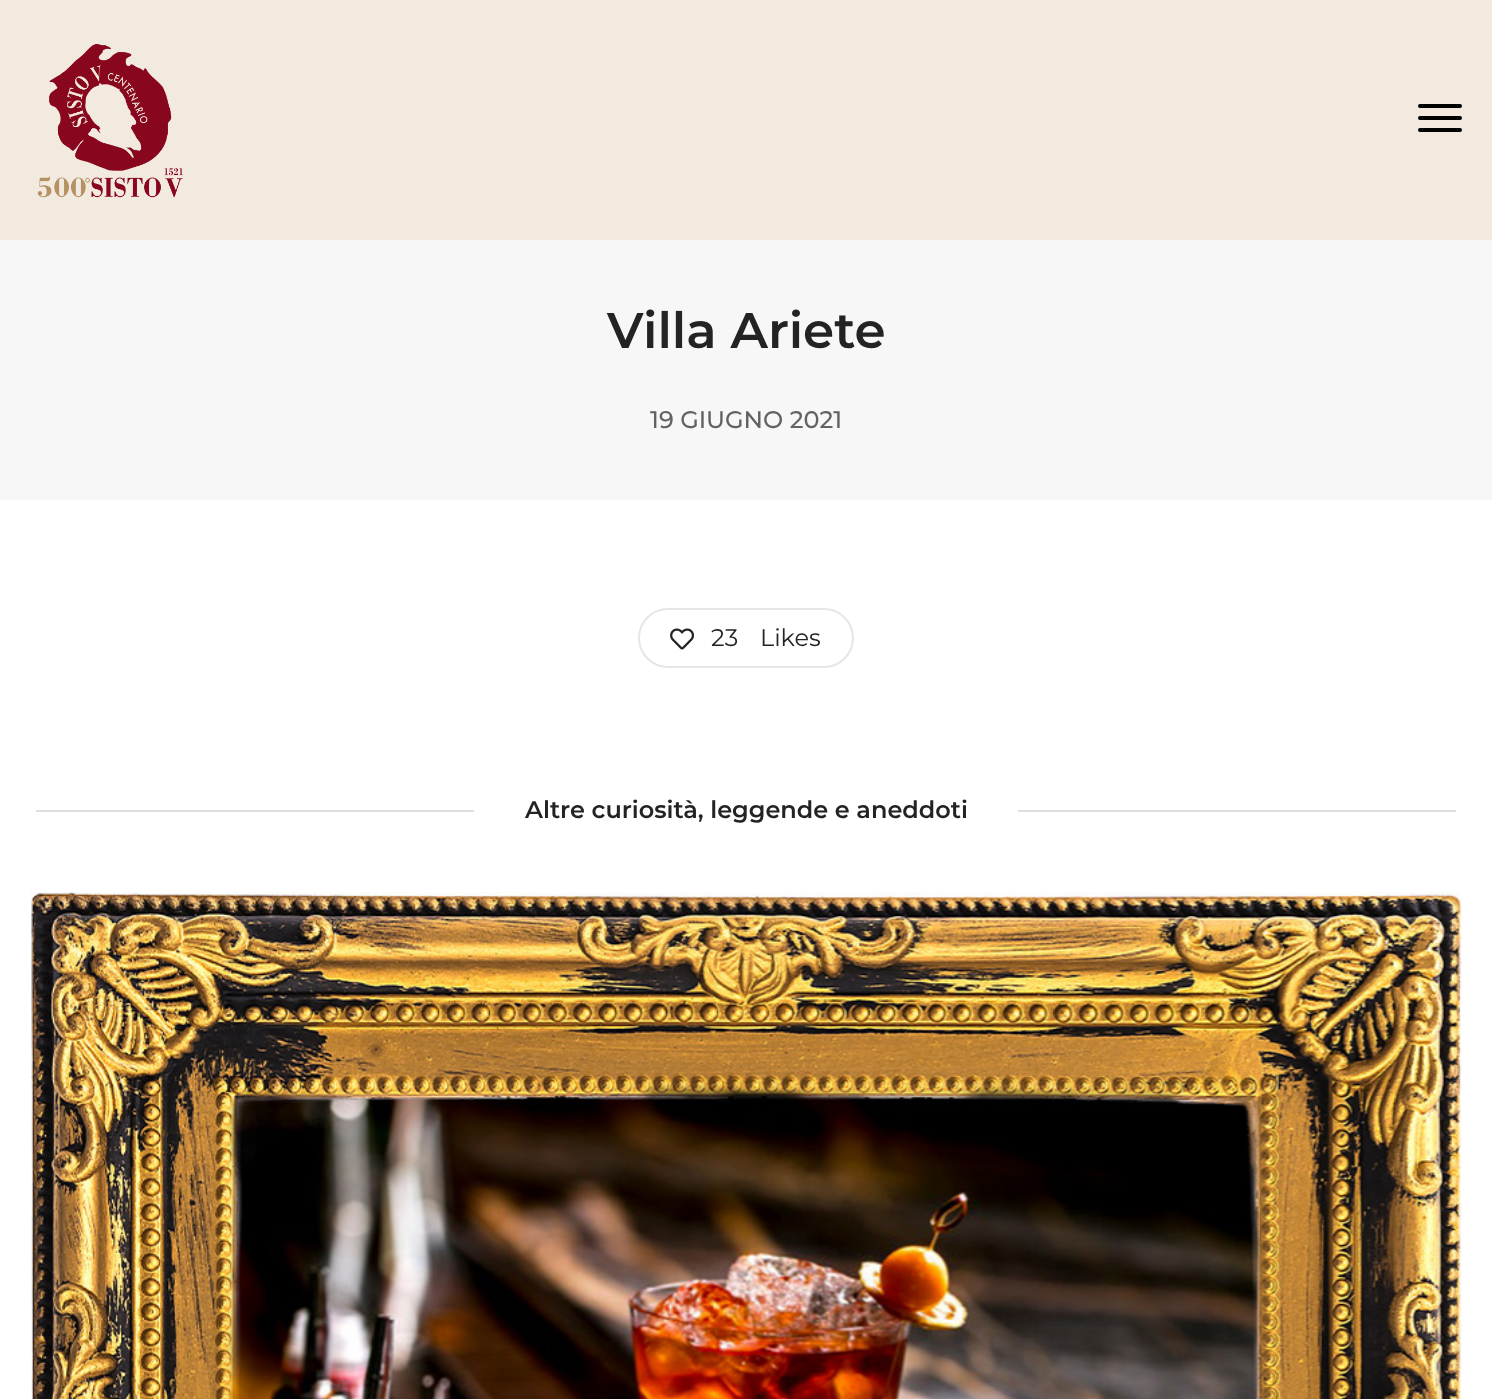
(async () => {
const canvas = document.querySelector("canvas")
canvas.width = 1492
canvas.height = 1399
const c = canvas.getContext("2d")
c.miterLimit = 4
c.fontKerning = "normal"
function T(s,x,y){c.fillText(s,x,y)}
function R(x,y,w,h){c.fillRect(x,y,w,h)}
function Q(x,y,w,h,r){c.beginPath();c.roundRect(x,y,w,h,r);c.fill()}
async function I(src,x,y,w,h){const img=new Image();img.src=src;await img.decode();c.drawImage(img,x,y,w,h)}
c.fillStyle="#fff"
R(0,0,1492,1399)
c.fillStyle="#f2e9df"
R(0,0,1492,240)
await I("1.png",37,44,146,154)
c.fillStyle="#020202"
Q(1418,104,44,4,2)
Q(1418,116,44,4,2)
Q(1418,128,44,4,2)
c.fillStyle="#f7f7f7"
R(0,240,1492,260)
c.font="600 50px Montserrat"
c.fillStyle="#232323"
T("Villa Ariete",607,348)
c.font="500 24px Montserrat"
c.fillStyle="#626262"
T("19 GIUGNO 2021",650,428)
c.beginPath()
c.roundRect(639,609,214,58,29)
c.strokeStyle="#e6e6e6"
c.lineWidth=2
c.stroke()
await I("2.png",670,628,25,22)
c.font="24px Montserrat"
c.fillStyle="#232323"
T("23",711,646)
T("Likes",760,646)
c.fillStyle="#dedede"
R(36,810,438,2)
c.font="600 24px Montserrat"
c.fillStyle="#232323"
T("Altre curiosità, leggende e aneddoti",525,818)
c.fillStyle="#dedede"
R(1018,810,438,2)
await I("3.png",30,892,1432,507)
})()
